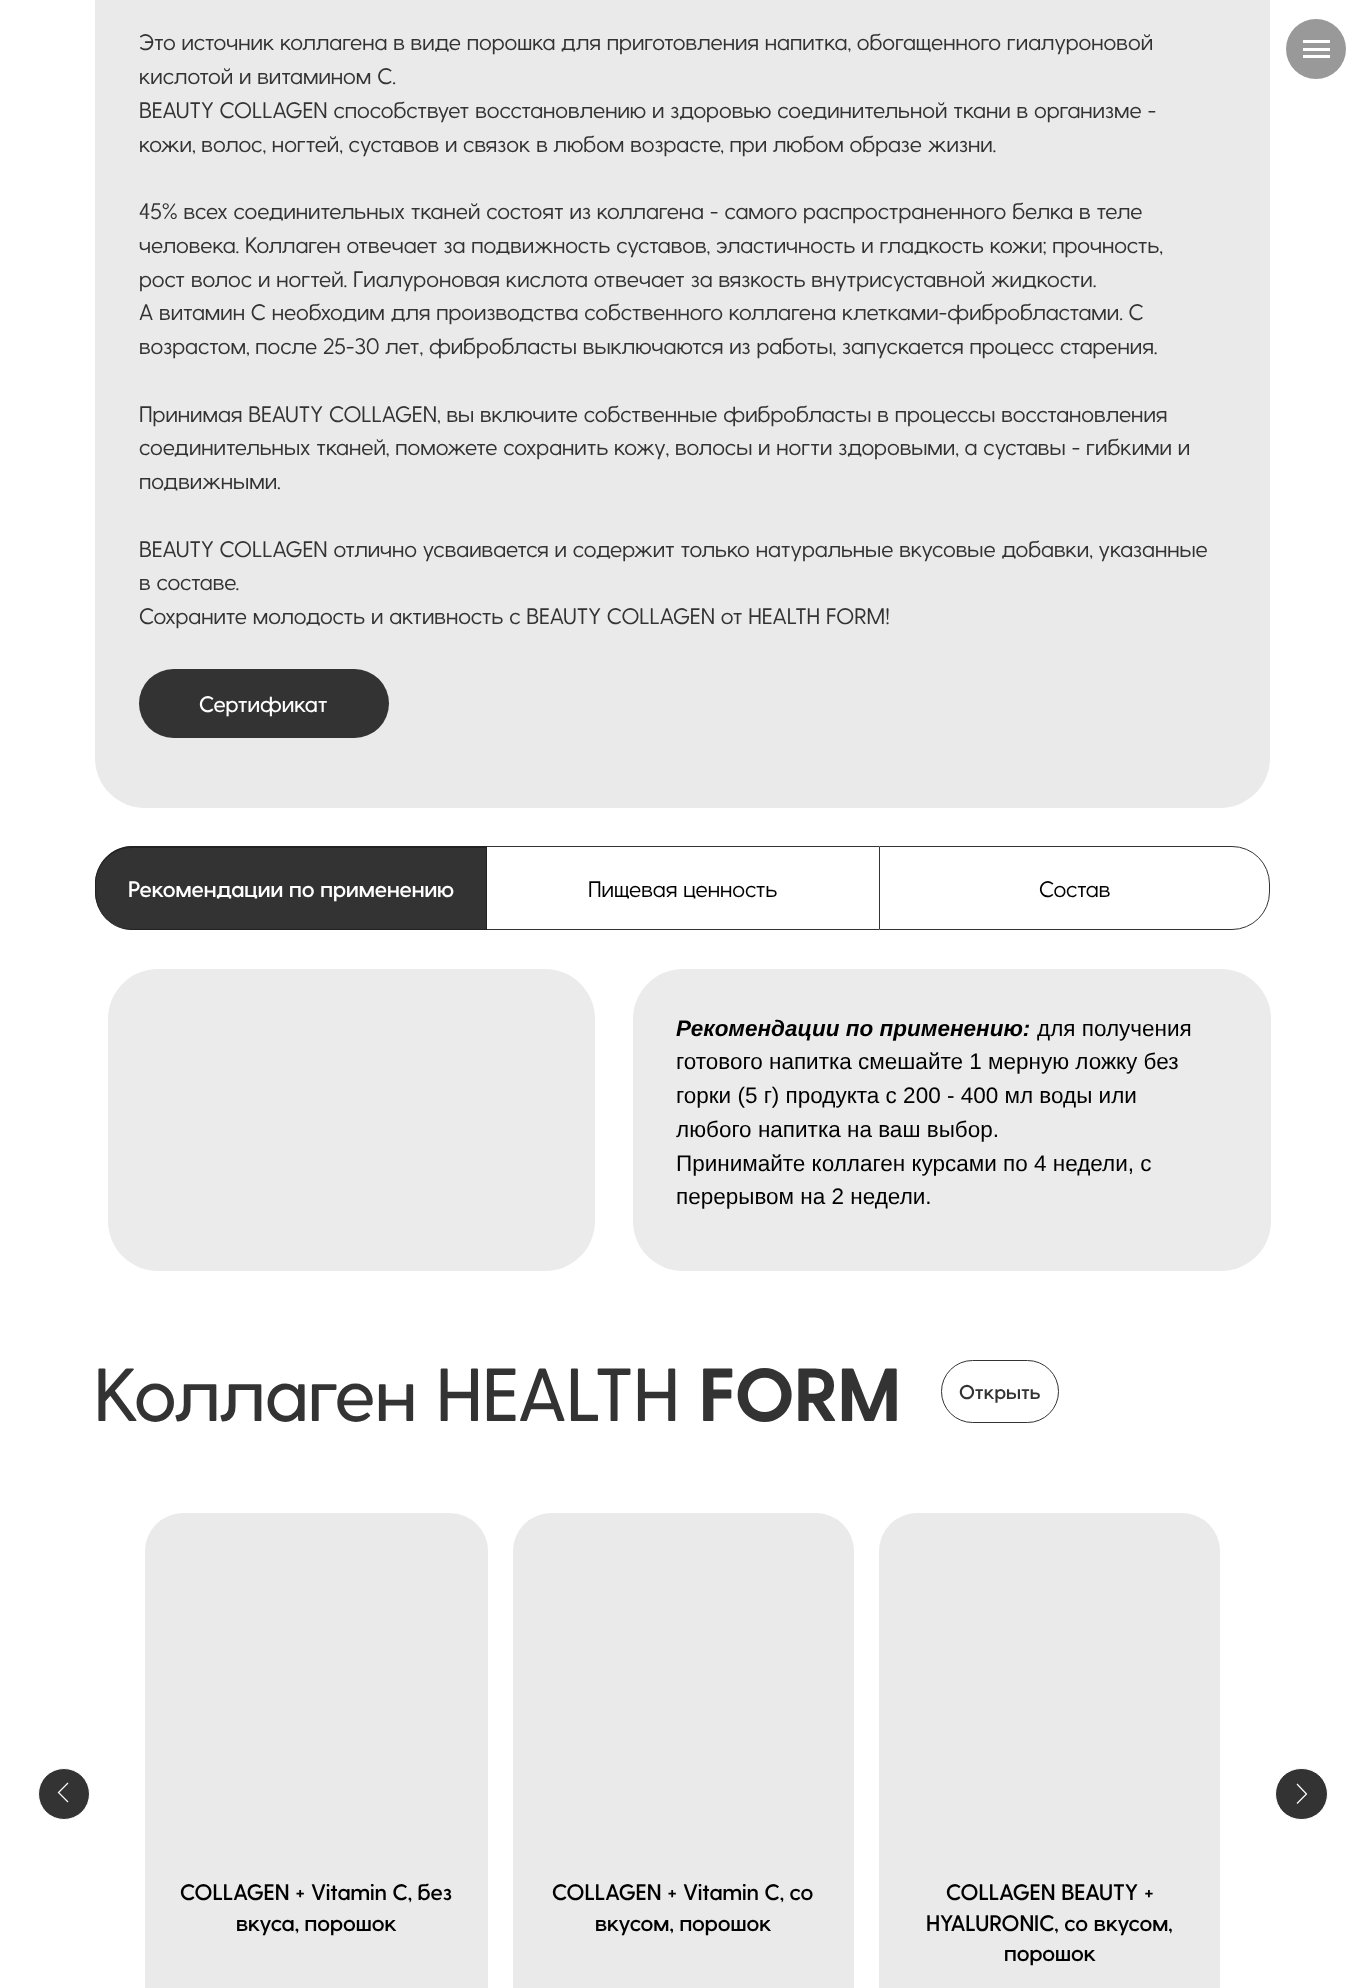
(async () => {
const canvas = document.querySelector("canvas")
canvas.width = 1365
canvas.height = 1988
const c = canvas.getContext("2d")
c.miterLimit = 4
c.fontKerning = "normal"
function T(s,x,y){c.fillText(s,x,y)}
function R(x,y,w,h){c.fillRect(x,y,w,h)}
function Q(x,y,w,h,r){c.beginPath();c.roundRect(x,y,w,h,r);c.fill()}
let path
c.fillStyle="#fff"
R(0,0,1365,1988)
c.fillStyle="#eaeaea"
Q(95,-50,1175,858,50)
c.font="22.5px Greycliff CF"
c.fillStyle="#333"
T("Это источник коллагена в виде порошка для приготовления напитка, обогащенного гиалуроновой",139,50)
T("кислотой и витамином C.",139,84)
T("BEAUTY COLLAGEN способствует восстановлению и здоровью соединительной ткани в организме -",139,118)
T("кожи, волос, ногтей, суставов и связок в любом возрасте, при любом образе жизни.",139,152)
T("45% всех соединительных тканей состоят из коллагена - самого распространенного белка в теле",139,219)
T("человека. Коллаген отвечает за подвижность суставов, эластичность и гладкость кожи; прочность,",139,253)
T("рост волос и ногтей. Гиалуроновая кислота отвечает за вязкость внутрисуставной жидкости.",139,287)
T("А витамин С необходим для производства собственного коллагена клетками-фибробластами. С",139,320)
T("возрастом, после 25-30 лет, фибробласты выключаются из работы, запускается процесс старения.",139,354)
T("Принимая BEAUTY COLLAGEN, вы включите собственные фибробласты в процессы восстановления",139,422)
T("соединительных тканей, поможете сохранить кожу, волосы и ногти здоровыми, а суставы - гибкими и",139,455)
T("подвижными.",139,489)
T("BEAUTY COLLAGEN отлично усваивается и содержит только натуральные вкусовые добавки, указанные",139,557)
T("в составе.",139,590)
T("Сохраните молодость и активность с BEAUTY COLLAGEN от HEALTH FORM!",139,624)
Q(139,669,250,69,34.5)
c.font="500 22.5px Greycliff CF"
c.fillStyle="#fff"
T("Сертификат",199,712)
c.fillStyle="#999"
c.beginPath()
c.arc(1316,49,30,0,7)
c.fill()
c.fillStyle="#fff"
R(1303,40,27,3)
R(1303,48,27,3)
R(1303,55,27,3)
c.fillStyle="#333"
c.beginPath()
c.roundRect(95,846,391,84,[38,0,0,38])
c.fill()
c.fillStyle="#222"
path = new Path2D("M132 846h354v84h-354c-20 0-37-17-37-38v-8c0-21 17-38 37-38zm0 2h354v81h-354c-20 0-36-16-36-37v-8c0-20 16-36 36-36z")
c.fill(path,"evenodd")
c.font="600 22.5px Greycliff CF"
c.fillStyle="#fff"
T("Рекомендации по применению",128,897)
c.fillStyle="#333"
R(486,846,393,1)
R(486,929,393,1)
c.fillStyle="#222"
R(486,846,1,84)
c.font="22.5px Greycliff CF"
c.fillStyle="#000"
T("Пищевая ценность",588,897)
c.beginPath()
c.roundRect(879.5,846.5,390,83,[0,37.5,37.5,0])
c.strokeStyle="#333"
c.stroke()
T("Состав",1039,897)
c.fillStyle="#ebebeb"
Q(108,969,487,302,50)
Q(633,969,638,302,50)
c.font="italic bold 22.5px Liberation Sans"
c.fillStyle="#000"
T("Рекомендации по применению:",676,1036)
c.font="22.5px Liberation Sans"
T("для получения",1037,1036)
T("готового напитка смешайте 1 мерную ложку без",676,1069)
T("горки (5 г) продукта с 200 - 400 мл воды или",676,1103)
T("любого напитка на ваш выбор.",676,1137)
T("Принимайте коллаген курсами по 4 недели, с",676,1171)
T("перерывом на 2 недели.",676,1204)
c.font="500 75px Greycliff CF"
c.fillStyle="#333"
T("Коллаген HEALTH",94,1421)
c.font="bold 75px Greycliff CF"
T("FORM",699,1421)
c.beginPath()
c.roundRect(941.5,1360.5,117,62,31)
c.stroke()
c.font="600 20px Greycliff CF"
T("Открыть",959,1399)
c.beginPath()
c.arc(64,1794,25.5,0,7)
c.fill()
c.strokeStyle="#fff"
c.stroke()
path = new Path2D("M68 1802l-9.5-9.5l9.5-9.5")
c.lineWidth=1.2
c.stroke(path)
c.beginPath()
c.roundRect(1275.5,1768.5,52,51,25.5)
c.fill()
c.lineWidth=1
c.stroke()
path = new Path2D("M1297 1784l9.5 10l-9.5 9.5")
c.lineWidth=1.2
c.stroke(path)
c.fillStyle="#eaeaea"
c.beginPath()
c.roundRect(145,1513,343,341,[38,38,0,0])
c.fill()
R(145,1854,343,134)
c.font="600 22.5px Greycliff CF"
c.fillStyle="#000"
T("COLLAGEN + Vitamin C, без",180,1900)
T("вкуса, порошок",236,1931)
c.fillStyle="#eaeaea"
c.beginPath()
c.roundRect(513,1513,341,341,[38,38,0,0])
c.fill()
R(513,1854,341,134)
c.fillStyle="#000"
T("COLLAGEN + Vitamin C, со",552,1900)
T("вкусом, порошок",595,1931)
c.fillStyle="#eaeaea"
c.beginPath()
c.roundRect(879,1513,341,341,[38,38,0,0])
c.fill()
R(879,1854,341,134)
c.fillStyle="#000"
T("COLLAGEN BEAUTY +",946,1900)
T("HYALURONIC, со вкусом,",926,1931)
T("порошок",1004,1961)
})()
